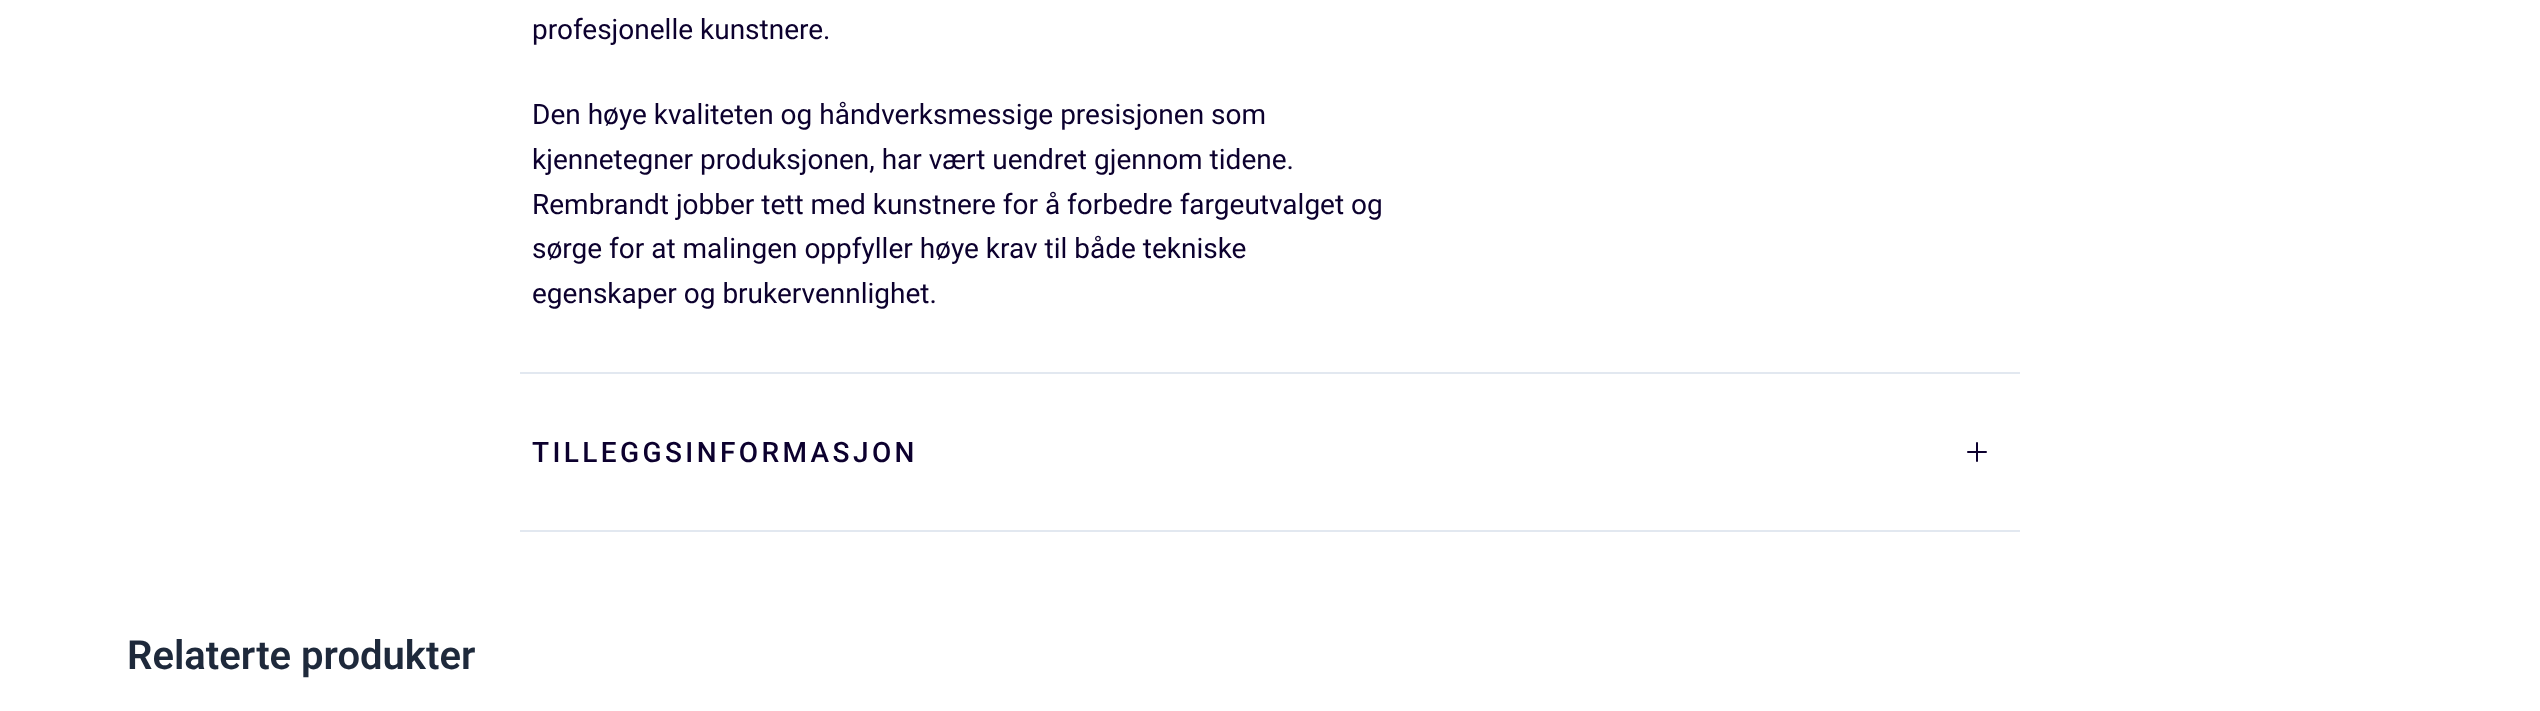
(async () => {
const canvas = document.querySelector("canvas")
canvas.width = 2540
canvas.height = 711
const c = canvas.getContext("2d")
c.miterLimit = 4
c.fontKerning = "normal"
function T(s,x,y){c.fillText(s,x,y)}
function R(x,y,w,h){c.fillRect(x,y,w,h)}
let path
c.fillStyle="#fff"
R(0,0,2540,711)
c.fillStyle="#e2e8f0"
R(520,530,1500,2)
c.font="28px Roboto"
c.fillStyle="#0c002e"
T("profesjonelle kunstnere.",532,39)
T("Den høye kvaliteten og håndverksmessige presisjonen som",532,124)
T("kjennetegner produksjonen, har vært uendret gjennom tidene.",532,169)
T("Rembrandt jobber tett med kunstnere for å forbedre fargeutvalget og",532,214)
T("sørge for at malingen oppfyller høye krav til både tekniske",532,258)
T("egenskaper og brukervennlighet.",532,303)
c.fillStyle="#e2e8f0"
R(520,372,1500,2)
c.letterSpacing="3.4px"
c.font="500 28px Roboto"
c.fillStyle="#0c002e"
T("TILLEGGSINFORMASJON",532,462)
path = new Path2D("M1977 443v18m-9-9h18m-9-9v18m-9-9h18")
c.strokeStyle="#0c002e"
c.lineWidth=2
c.lineCap="round"
c.lineJoin="round"
c.stroke(path)
c.letterSpacing="0px"
c.font="600 40px Roboto"
c.fillStyle="#1e293b"
T("Relaterte produkter",127,669)
})()
